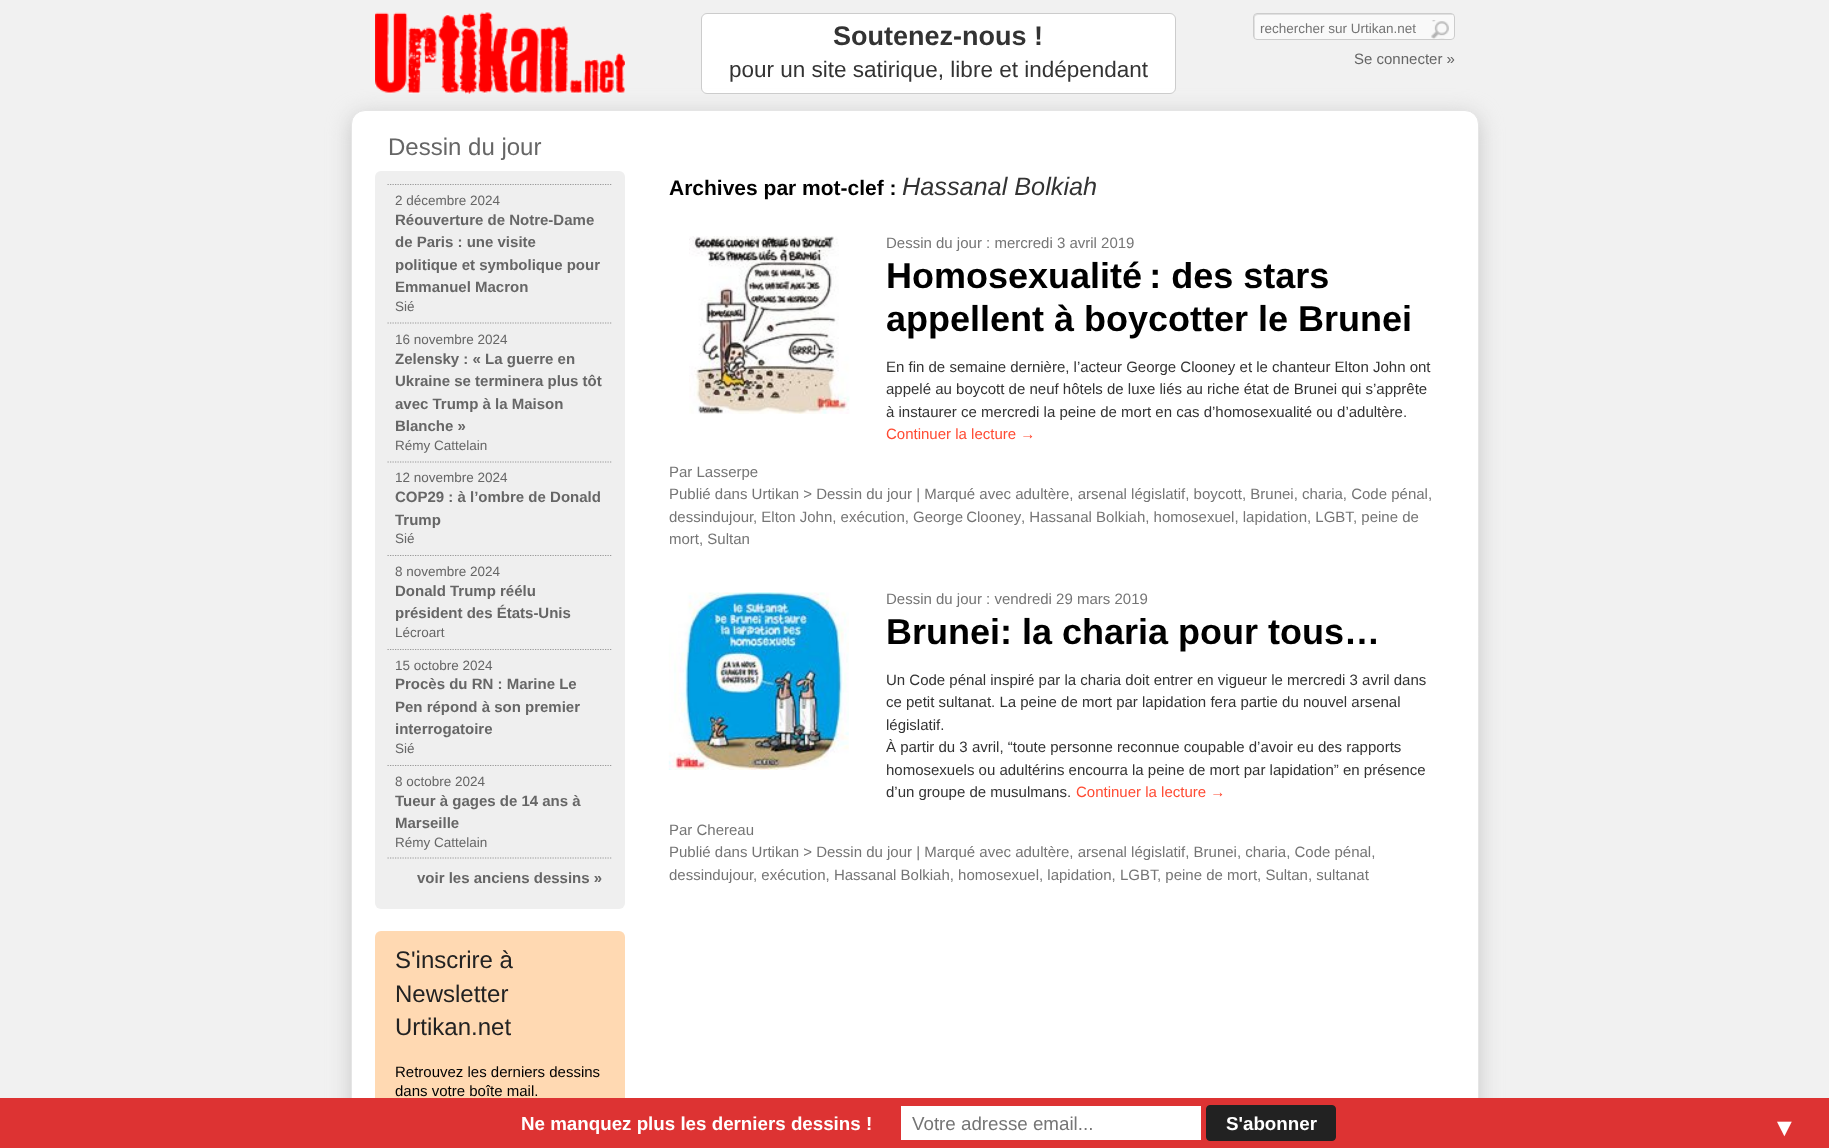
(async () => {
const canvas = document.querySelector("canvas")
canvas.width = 1829
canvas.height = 1148
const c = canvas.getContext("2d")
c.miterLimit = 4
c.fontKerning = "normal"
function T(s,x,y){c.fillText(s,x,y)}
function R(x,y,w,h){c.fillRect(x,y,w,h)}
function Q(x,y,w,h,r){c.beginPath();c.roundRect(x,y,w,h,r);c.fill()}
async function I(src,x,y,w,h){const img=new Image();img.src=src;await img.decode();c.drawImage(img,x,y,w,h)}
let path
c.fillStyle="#f1f1f1"
R(0,0,1829,1148)
await I("1.png",375,12,250,82)
c.fillStyle="#fff"
c.beginPath()
c.roundRect(701.5,13.5,474,80,5.5)
c.fill()
c.strokeStyle="#ccc"
c.stroke()
c.font="bold 27px Liberation Sans"
c.fillStyle="#333"
T("Soutenez-nous !",833,45)
c.font="22.5px Liberation Sans"
T("pour un site satirique, libre et indépendant",729,77)
c.fillStyle="#f9f9f9"
Q(1253,13,202,27,4)
c.fillStyle="#e0e0e0"
path = new Path2D("M1258 15h196c-1 0-2-1-2-1h-196c-1 0-2 1-2 2v20c0 1 0 2 1 3v-18c0-2-1-6 3-6z")
c.fill(path)
c.beginPath()
c.roundRect(1253.5,13.5,201,26,3.5)
c.stroke()
c.font="13.5px Liberation Sans"
c.fillStyle="#757575"
T("rechercher sur Urtikan.net",1260,33)
await I("2.png",1431,20,18,19)
c.font="15px Liberation Sans"
c.fillStyle="#666"
T("Se connecter »",1354,64)
c.fillStyle="#c8c8c8"
c.filter="blur(11px)"
c.beginPath()
c.roundRect(351,115,1128,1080,14)
c.fill()
c.filter="none"
c.fillStyle="#fff"
c.beginPath()
c.roundRect(351.5,110.5,1127,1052,13.5)
c.fill()
c.strokeStyle="#e5e5e5"
c.stroke()
c.font="24px Liberation Sans"
c.fillStyle="#666"
T("Dessin du jour",388,155)
c.fillStyle="#efefef"
Q(375,171,250,738,6)
path = new Path2D("M387.5 184.5h225")
c.strokeStyle="#999"
c.lineWidth=1.2
c.setLineDash([1.25,1.25])
c.stroke(path)
R(388,185,225,1)
c.font="13.5px Liberation Sans"
c.fillStyle="#666"
T("2 décembre 2024",395,205)
c.font="bold 15px Liberation Sans"
T("Réouverture de Notre-Dame",395,225)
T("de Paris : une visite",395,247)
T("politique et symbolique pour",395,270)
T("Emmanuel Macron",395,292)
c.font="13.5px Liberation Sans"
T("Sié",395,311)
path = new Path2D("M387.5 323h225")
c.stroke(path)
T("16 novembre 2024",395,344)
c.font="bold 15px Liberation Sans"
T("Zelensky : « La guerre en",395,364)
T("Ukraine se terminera plus tôt",395,386)
T("avec Trump à la Maison",395,409)
T("Blanche »",395,431)
c.font="13.5px Liberation Sans"
T("Rémy Cattelain",395,450)
path = new Path2D("M387.5 462h225")
c.stroke(path)
T("12 novembre 2024",395,482)
c.font="bold 15px Liberation Sans"
T("COP29 : à l’ombre de Donald",395,502)
T("Trump",395,525)
c.font="13.5px Liberation Sans"
T("Sié",395,543)
path = new Path2D("M387.5 555.5h225")
c.stroke(path)
c.fillStyle="#efefef"
R(388,556,225,1)
c.fillStyle="#666"
T("8 novembre 2024",395,576)
c.font="bold 15px Liberation Sans"
T("Donald Trump réélu",395,596)
T("président des États-Unis",395,618)
c.font="13.5px Liberation Sans"
T("Lécroart",395,637)
path = new Path2D("M387.5 649.5h225")
c.stroke(path)
c.fillStyle="#efefef"
R(388,650,225,1)
c.fillStyle="#666"
T("15 octobre 2024",395,670)
c.font="bold 15px Liberation Sans"
T("Procès du RN : Marine Le",395,689)
T("Pen répond à son premier",395,712)
T("interrogatoire",395,734)
c.font="13.5px Liberation Sans"
T("Sié",395,753)
path = new Path2D("M387.5 765.5h225")
c.stroke(path)
c.fillStyle="#efefef"
R(388,766,225,1)
c.fillStyle="#666"
T("8 octobre 2024",395,786)
c.font="bold 15px Liberation Sans"
T("Tueur à gages de 14 ans à",395,806)
T("Marseille",395,828)
c.font="13.5px Liberation Sans"
T("Rémy Cattelain",395,847)
path = new Path2D("M387.5 858h225")
c.stroke(path)
c.font="bold 15px Liberation Sans"
T("voir les anciens dessins »",417,883)
c.fillStyle="#ffd9b2"
Q(375,931,250,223,6)
c.font="24px Liberation Sans"
c.fillStyle="#222"
T("S'inscrire à",395,968)
T("Newsletter",395,1002)
T("Urtikan.net",395,1035)
c.font="15px Liberation Sans"
c.fillStyle="#000"
T("Retrouvez les derniers dessins",395,1077)
T("dans votre boîte mail.",395,1096)
c.font="bold 21px Liberation Sans"
T("Archives par mot-clef :",669,195)
c.font="italic 25.25px Liberation Sans"
c.fillStyle="#333"
T("Hassanal Bolkiah",902,195)
await I("3.png",689,236,161,178)
c.font="15px Liberation Sans"
c.fillStyle="#757575"
T("Dessin du jour : mercredi 3 avril 2019",886,248)
c.font="bold 36px Liberation Sans"
c.fillStyle="#000"
T("Homosexualité : des stars",886,288)
T("appellent à boycotter le Brunei",886,331)
c.font="15px Liberation Sans"
c.fillStyle="#333"
T("En fin de semaine dernière, l’acteur George Clooney et le chanteur Elton John ont",886,372)
T("appelé au boycott de neuf hôtels de luxe liés au riche état de Brunei qui s’apprête",886,394)
T("à instaurer ce mercredi la peine de mort en cas d’homosexualité ou d’adultère.",886,417)
c.fillStyle="#ff4b33"
T("Continuer la lecture →",886,439)
c.fillStyle="#757575"
T("Par Lasserpe",669,477)
T("Publié dans Urtikan > Dessin du jour | Marqué avec adultère, arsenal législatif, boycott, Brunei, charia, Code pénal,",669,499)
T("dessindujour",669,522)
T(", Elton John, exécution,",753,522)
c.wordSpacing="-1px"
T("George Clooney",913,522)
c.wordSpacing="0px"
T(", Hassanal Bolkiah, homosexuel, lapidation, LGBT",1021,522)
T(", peine de",1353,522)
T("mort, Sultan",669,544)
await I("4.png",668,592,181,178)
T("Dessin du jour : vendredi 29 mars 2019",886,604)
c.font="bold 36px Liberation Sans"
c.fillStyle="#000"
T("Brunei: la charia pour tous…",886,644)
c.font="15px Liberation Sans"
c.fillStyle="#333"
T("Un Code pénal inspiré par la charia doit entrer en vigueur le mercredi 3 avril dans",886,685)
T("ce petit sultanat. La peine de mort par lapidation fera partie du nouvel arsenal",886,707)
T("législatif.",886,730)
T("À partir du 3 avril, “toute personne reconnue coupable d’avoir eu des rapports",886,752)
T("homosexuels ou adultérins encourra la peine de mort par lapidation” en présence",886,775)
T("d’un groupe de musulmans.",886,797)
c.fillStyle="#ff4b33"
T("Continuer la lecture →",1076,797)
c.fillStyle="#757575"
T("Par Chereau",669,835)
T("Publié dans Urtikan > Dessin du jour | Marqué avec adultère, arsenal législatif, Brunei, charia, Code pénal,",669,857)
T("dessindujour",669,880)
T(", exécution, Hassanal Bolkiah, homosexuel, lapidation, LGBT",753,880)
T(", peine de mort, Sultan, sultanat",1157,880)
c.fillStyle="#d33"
R(0,1098,1829,50)
c.font="bold 18.75px Liberation Sans"
c.fillStyle="#fff"
T("Ne manquez plus les derniers dessins !",521,1130)
R(901,1106,300,34)
c.font="18.75px Liberation Sans"
c.fillStyle="#757575"
T("Votre adresse email...",912,1130)
c.fillStyle="#222"
c.beginPath()
c.roundRect(1206.5,1105.5,129,35,3.5)
c.fill()
c.strokeStyle="#222"
c.lineWidth=1
c.setLineDash([])
c.stroke()
c.font="bold 18.75px Liberation Sans"
c.fillStyle="#fff"
T("S'abonner",1226,1130)
c.font="25px Liberation Sans"
T("▼",1772,1136)
})()
